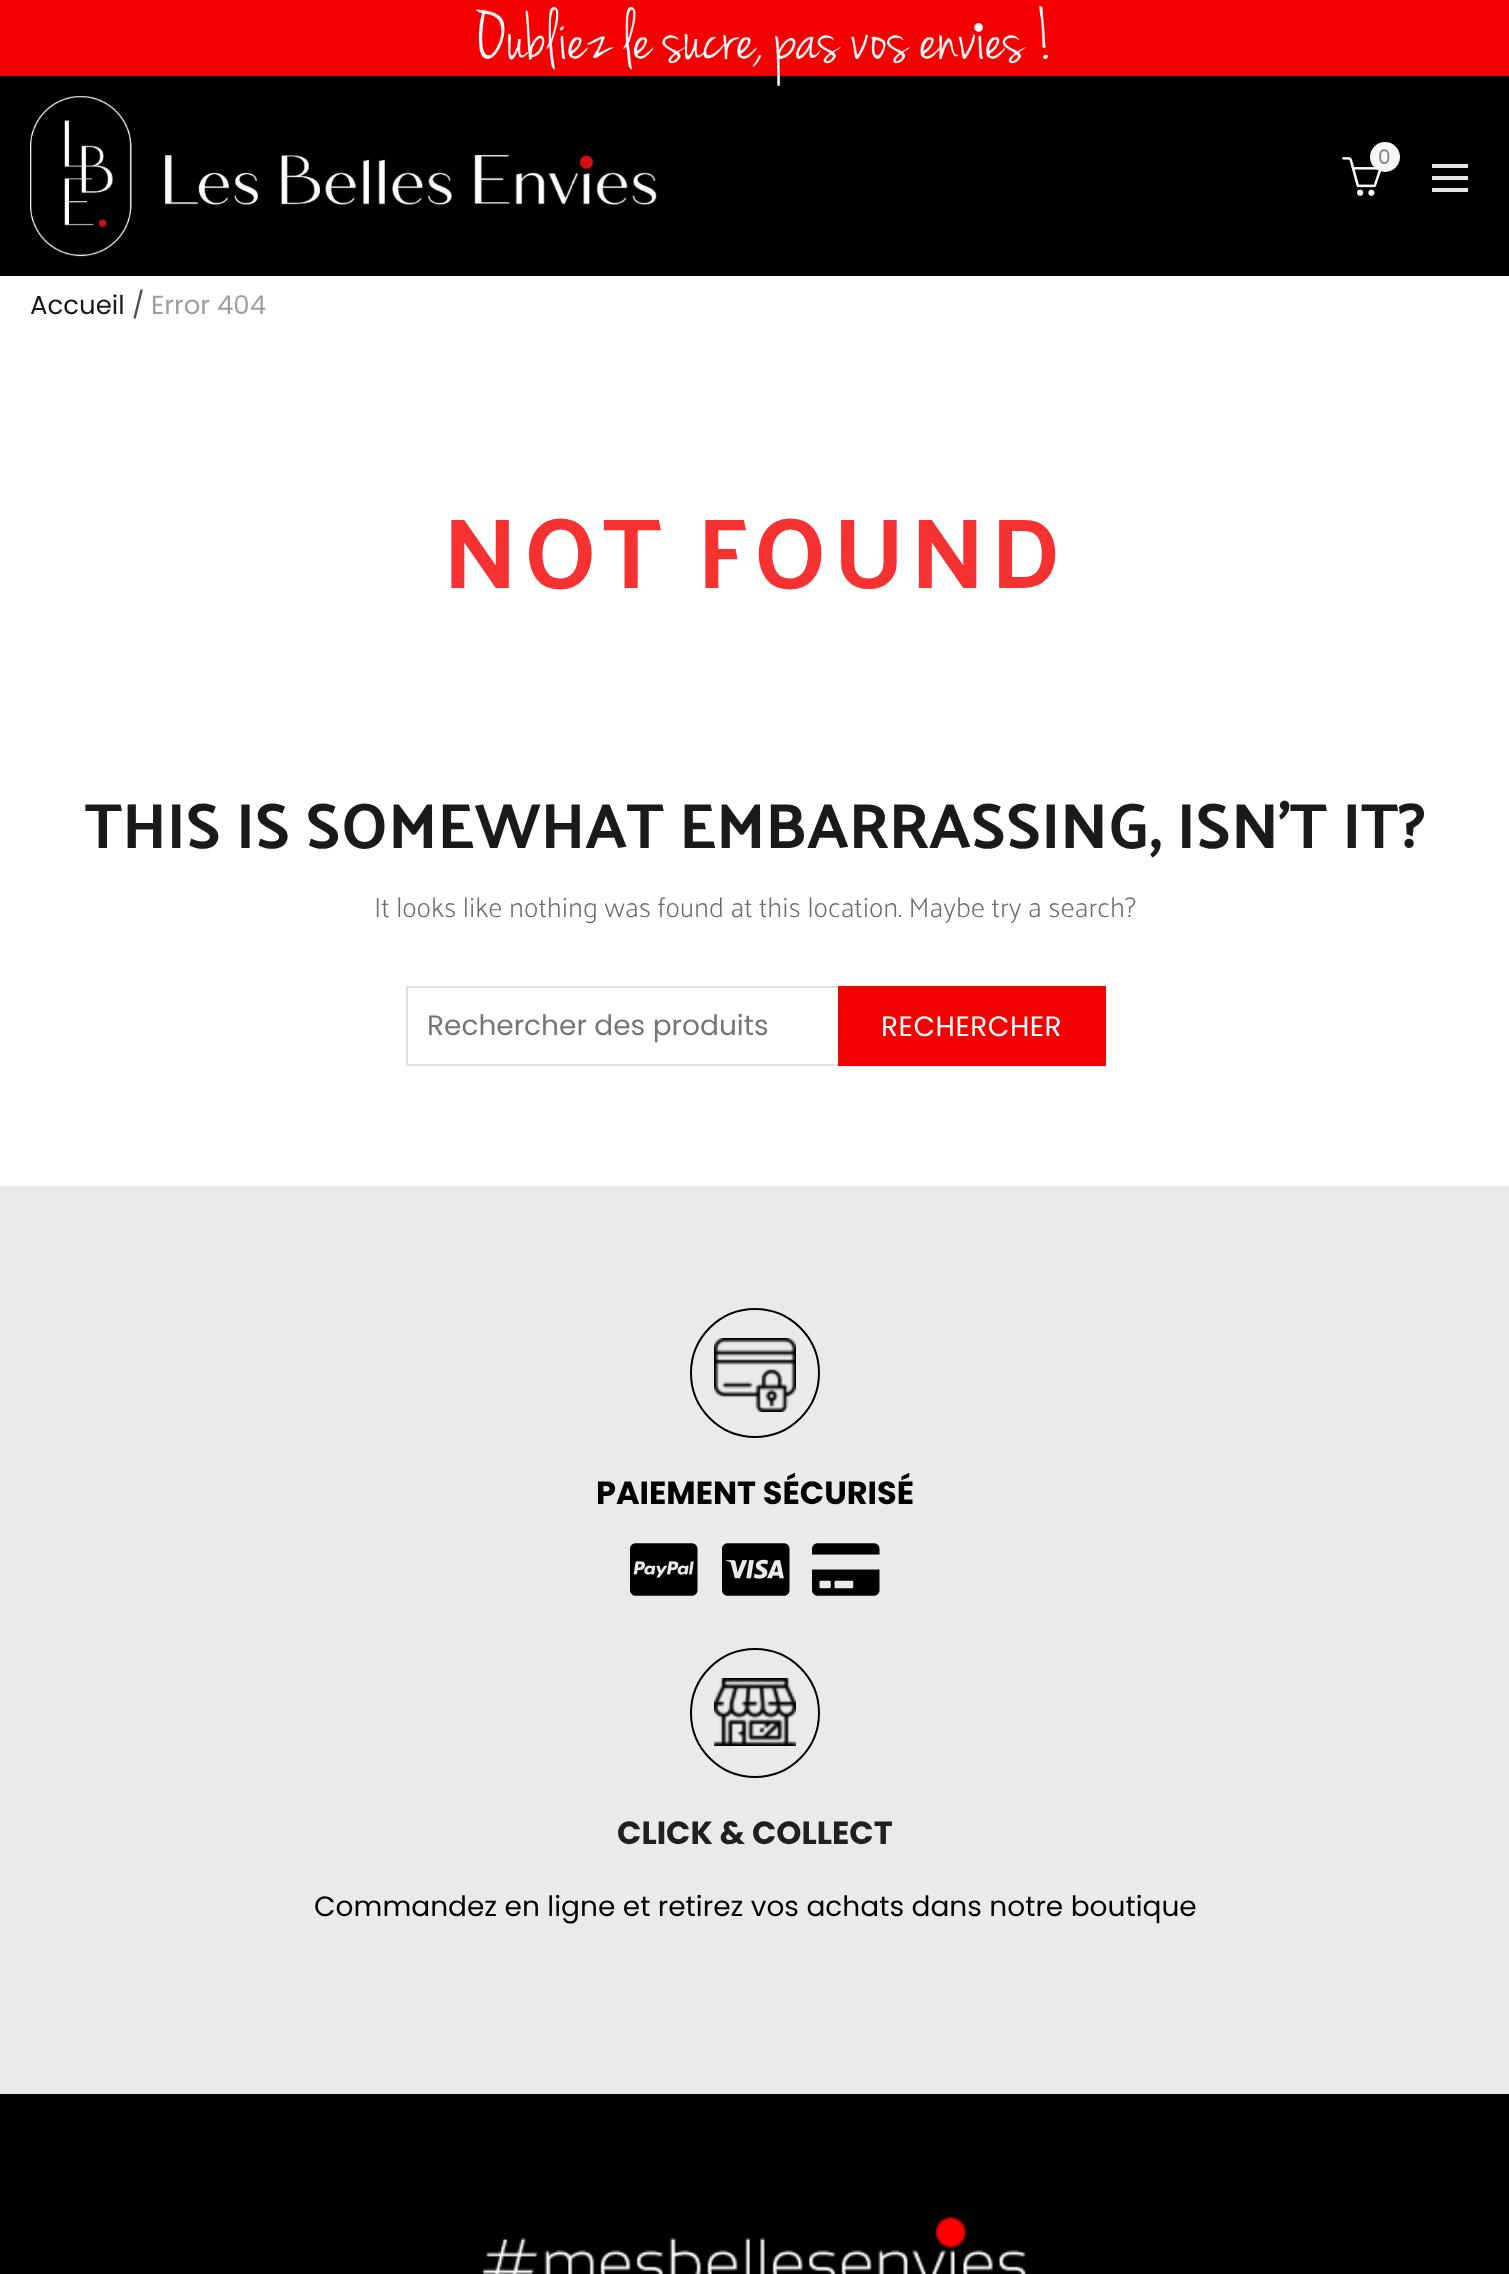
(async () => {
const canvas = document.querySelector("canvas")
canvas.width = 1509
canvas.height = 2274
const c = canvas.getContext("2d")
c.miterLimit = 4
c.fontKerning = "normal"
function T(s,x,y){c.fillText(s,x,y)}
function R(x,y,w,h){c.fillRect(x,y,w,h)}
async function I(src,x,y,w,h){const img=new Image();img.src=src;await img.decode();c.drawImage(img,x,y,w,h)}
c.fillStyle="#fff"
R(0,0,1509,2274)
c.fillStyle="#f50000"
R(0,0,1509,76)
c.fillStyle="#000"
R(0,76,1509,200)
await I("1.png",476,6,572,80)
await I("2.png",30,96,627,161)
await I("3.png",1342,157,39,39)
c.fillStyle="#f7f7f7"
c.beginPath()
c.arc(1385,157,15,0,7)
c.fill()
c.font="20px Poppins"
c.fillStyle="#7e7e7e"
T("0",1378,164)
c.fillStyle="#e6e6e6"
R(1432,176,36,4)
R(1432,164,36,4)
R(1432,188,36,4)
c.font="26px Poppins"
c.fillStyle="#1b1919"
T("Accueil",30,314)
c.fillStyle="#4c4c4c"
T("/",132,314)
c.fillStyle="#9e9e9e"
T("Error 404",151,314)
c.letterSpacing="6px"
c.font="bold 100px Palanquin"
c.fillStyle="#f53131"
T("NOT FOUND",443,588)
c.letterSpacing="0px"
c.font="bold 64px Palanquin"
c.fillStyle="#1b1919"
T("THIS IS SOMEWHAT EMBARRASSING, ISN’T IT?",85,848)
c.font="200 28px Palanquin"
c.fillStyle="#6c6c6c"
T("It looks like nothing was found at this location. Maybe try a search?",374,917)
c.strokeStyle="#e0e0e0"
c.lineWidth=2
c.strokeRect(407,987,698,78)
c.font="28px Poppins"
c.fillStyle="#757575"
T("Rechercher des produits",427,1035)
c.fillStyle="#f50000"
R(838,986,268,80)
c.letterSpacing="0.5px"
c.fillStyle="#fff"
T("RECHERCHER",881,1036)
c.fillStyle="#eaeaea"
R(0,1186,1509,908)
c.beginPath()
c.arc(755,1373,64,0,7)
c.strokeStyle="#000"
c.stroke()
await I("4.png",714,1338,82,74)
c.letterSpacing="0px"
c.font="bold 32px Poppins"
c.fillStyle="#000"
T("PAIEMENT SÉCURISÉ",596,1504)
await I("5.png",630,1543,68,53)
await I("6.png",722,1543,68,53)
await I("7.png",812,1543,68,53)
c.beginPath()
c.arc(755,1713,64,0,7)
c.stroke()
await I("8.png",714,1678,82,68)
c.fillStyle="#202020"
T("CLICK & COLLECT",617,1844)
c.font="28px Poppins"
c.fillStyle="#000"
T("Commandez en ligne et retirez vos achats dans notre boutique",314,1916)
R(0,2094,1509,180)
await I("9.png",482,2217,544,57)
})()
